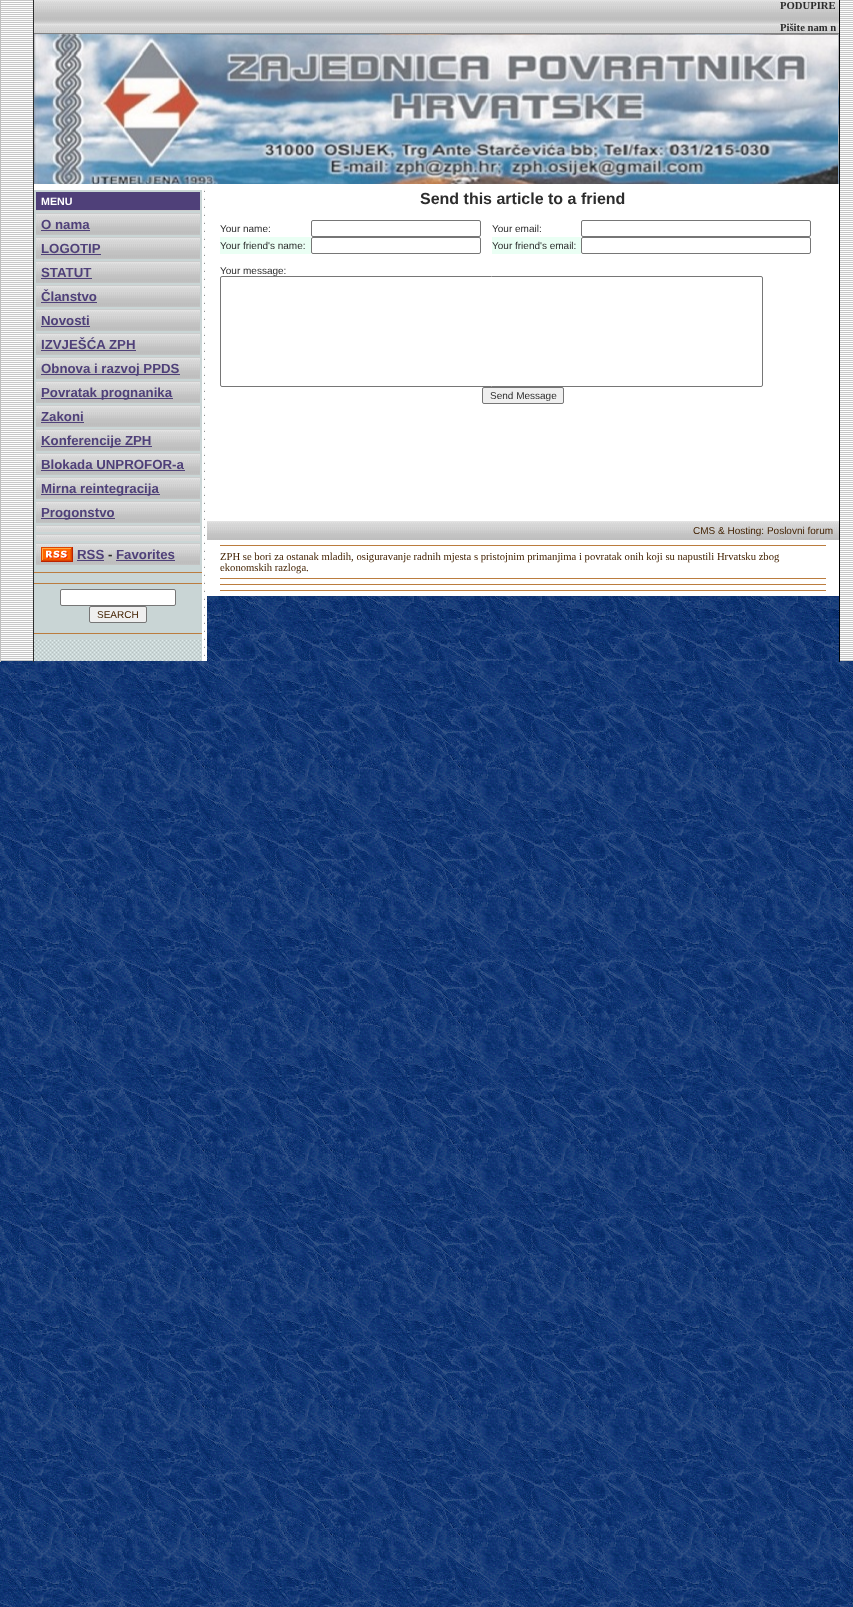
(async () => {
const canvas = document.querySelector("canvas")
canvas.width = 853
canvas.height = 1607
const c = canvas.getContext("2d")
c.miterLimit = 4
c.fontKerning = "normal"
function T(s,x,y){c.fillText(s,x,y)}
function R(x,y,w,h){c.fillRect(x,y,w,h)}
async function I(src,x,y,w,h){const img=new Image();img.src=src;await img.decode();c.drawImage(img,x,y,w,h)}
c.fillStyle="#fff"
R(0,0,853,1607)
await I("1.png",0,661,853,946)
await I("2.png",1,0,32,661)
c.fillStyle="#2c2c2c"
R(33,0,1,662)
c.fillStyle="#c0c0c0"
R(0,0,1,662)
await I("3.png",34,0,805,33)
c.fillStyle="#808080"
R(34,33,806,1)
c.font="bold 10.67px Liberation Serif"
c.fillStyle="#2c2c2c"
T("PODUPIRE",780,9)
T("Pišite nam n",780,31)
await I("4.png",34,34,805,150)
await I("5.png",207,596,632,65)
await I("6.png",34,639,168,22)
c.fillStyle="#c9d5d5"
R(34,190,168,449)
c.fillStyle="#4f4079"
R(36,192,164,18)
c.fillStyle="#ccc"
R(36,210,164,1)
c.font="bold 10.67px Liberation Sans"
c.fillStyle="#fff"
T("MENU",41,205)
await I("7.png",36,214,164,21)
c.fillStyle="#ccc"
R(36,213,164,1)
c.font="bold 13.25px Liberation Sans"
c.fillStyle="#4f4079"
T("O nama",41,229)
R(41,230,49,1)
await I("7.png",36,238,164,21)
c.fillStyle="#ccc"
R(36,237,164,1)
c.fillStyle="#4f4079"
T("LOGOTIP",41,253)
R(41,254,60,1)
await I("7.png",36,262,164,21)
c.fillStyle="#ccc"
R(36,261,164,1)
c.fillStyle="#4f4079"
T("STATUT",41,277)
R(41,278,51,1)
await I("7.png",36,286,164,21)
c.fillStyle="#ccc"
R(36,285,164,1)
c.fillStyle="#4f4079"
T("Članstvo",41,301)
R(41,302,56,1)
await I("7.png",36,310,164,21)
c.fillStyle="#ccc"
R(36,309,164,1)
c.fillStyle="#4f4079"
T("Novosti",41,325)
R(41,326,49,1)
await I("7.png",36,334,164,21)
c.fillStyle="#ccc"
R(36,333,164,1)
c.fillStyle="#4f4079"
T("IZVJEŠĆA ZPH",41,349)
R(41,350,95,1)
await I("7.png",36,358,164,21)
c.fillStyle="#ccc"
R(36,357,164,1)
c.fillStyle="#4f4079"
R(41,374,139,1)
T("Obnova i razvoj PPDS",41,373)
await I("7.png",36,382,164,21)
c.fillStyle="#ccc"
R(36,381,164,1)
c.fillStyle="#4f4079"
R(41,398,132,1)
T("Povratak prognanika",41,397)
await I("7.png",36,406,164,21)
c.fillStyle="#ccc"
R(36,405,164,1)
c.fillStyle="#4f4079"
T("Zakoni",41,421)
R(41,422,43,1)
await I("7.png",36,430,164,21)
c.fillStyle="#ccc"
R(36,429,164,1)
c.fillStyle="#4f4079"
R(41,446,111,1)
T("Konferencije ZPH",41,445)
await I("7.png",36,454,164,21)
c.fillStyle="#ccc"
R(36,453,164,1)
c.fillStyle="#4f4079"
T("Blokada UNPROFOR-a",41,469)
R(41,470,144,1)
await I("7.png",36,478,164,21)
c.fillStyle="#ccc"
R(36,477,164,1)
c.fillStyle="#4f4079"
R(41,494,119,1)
T("Mirna reintegracija",41,493)
await I("7.png",36,502,164,21)
c.fillStyle="#ccc"
R(36,501,164,1)
c.fillStyle="#4f4079"
R(41,518,74,1)
T("Progonstvo",41,517)
await I("8.png",36,526,164,6)
c.fillStyle="#ccc"
R(36,525,164,1)
await I("8.png",36,535,164,6)
R(36,534,164,1)
await I("7.png",36,544,164,21)
R(36,543,164,1)
await I("9.png",41,547,32,15)
c.fillStyle="#4f4079"
T("RSS",77,559)
R(77,560,27,1)
c.fillStyle="#2c2c2c"
T("-",108,559)
c.fillStyle="#4f4079"
T("Favorites",116,559)
R(116,560,59,1)
c.fillStyle="#bb7c3e"
R(34,572,168,1)
R(34,583,168,1)
c.fillStyle="#fff"
c.beginPath()
c.roundRect(60.5,589.5,115,16,1.5)
c.fill()
c.strokeStyle="#767676"
c.stroke()
c.fillStyle="#efefef"
c.beginPath()
c.roundRect(89.5,606.5,57,16,1.5)
c.fill()
c.stroke()
c.font="10px Liberation Sans"
c.fillStyle="#422100"
T("SEARCH",97,618)
c.fillStyle="#bb7c3e"
R(34,633,168,1)
await I("10.png",204,189,1,467)
c.font="bold 16px Liberation Sans"
c.fillStyle="#2c2c2c"
T("Send this article to a friend",420,204)
c.font="10px Liberation Sans"
T("Your name:",220,232)
c.beginPath()
c.roundRect(311.5,220.5,169,16,1.5)
c.stroke()
T("Your email:",492,232)
c.beginPath()
c.roundRect(581.5,220.5,229,16,1.5)
c.stroke()
c.fillStyle="#eafff4"
R(220,237,91,17)
c.fillStyle="#2c2c2c"
T("Your friend's name:",220,249)
c.beginPath()
c.roundRect(311.5,237.5,169,16,1.5)
c.stroke()
c.fillStyle="#eafff4"
R(492,237,89,17)
c.fillStyle="#2c2c2c"
T("Your friend's email:",492,249)
c.beginPath()
c.roundRect(581.5,237.5,229,16,1.5)
c.stroke()
T("Your message:",220,274)
c.fillStyle="#fff"
c.beginPath()
c.roundRect(220.5,276.5,542,110,1.5)
c.fill()
c.stroke()
c.fillStyle="#efefef"
c.beginPath()
c.roundRect(482.5,387.5,81,16,1.5)
c.fill()
c.stroke()
c.fillStyle="#2c2c2c"
T("Send Message",490,399)
await I("11.png",207,521,632,19)
c.fillStyle="#422100"
T("CMS & Hosting: Poslovni forum",693,534)
c.fillStyle="#bb7c3e"
R(220,545,606,1)
c.font="10.67px Liberation Serif"
c.fillStyle="#422100"
T("ZPH se bori za ostanak mladih, osiguravanje radnih mjesta s pristojnim primanjima i povratak onih koji su napustili Hrvatsku zbog",220,560)
T("ekonomskih razloga.",220,571)
c.fillStyle="#bb7c3e"
R(220,578,606,1)
R(220,584,606,1)
R(220,590,606,1)
await I("12.png",840,0,13,661)
c.fillStyle="#000"
R(839,0,1,662)
})()
